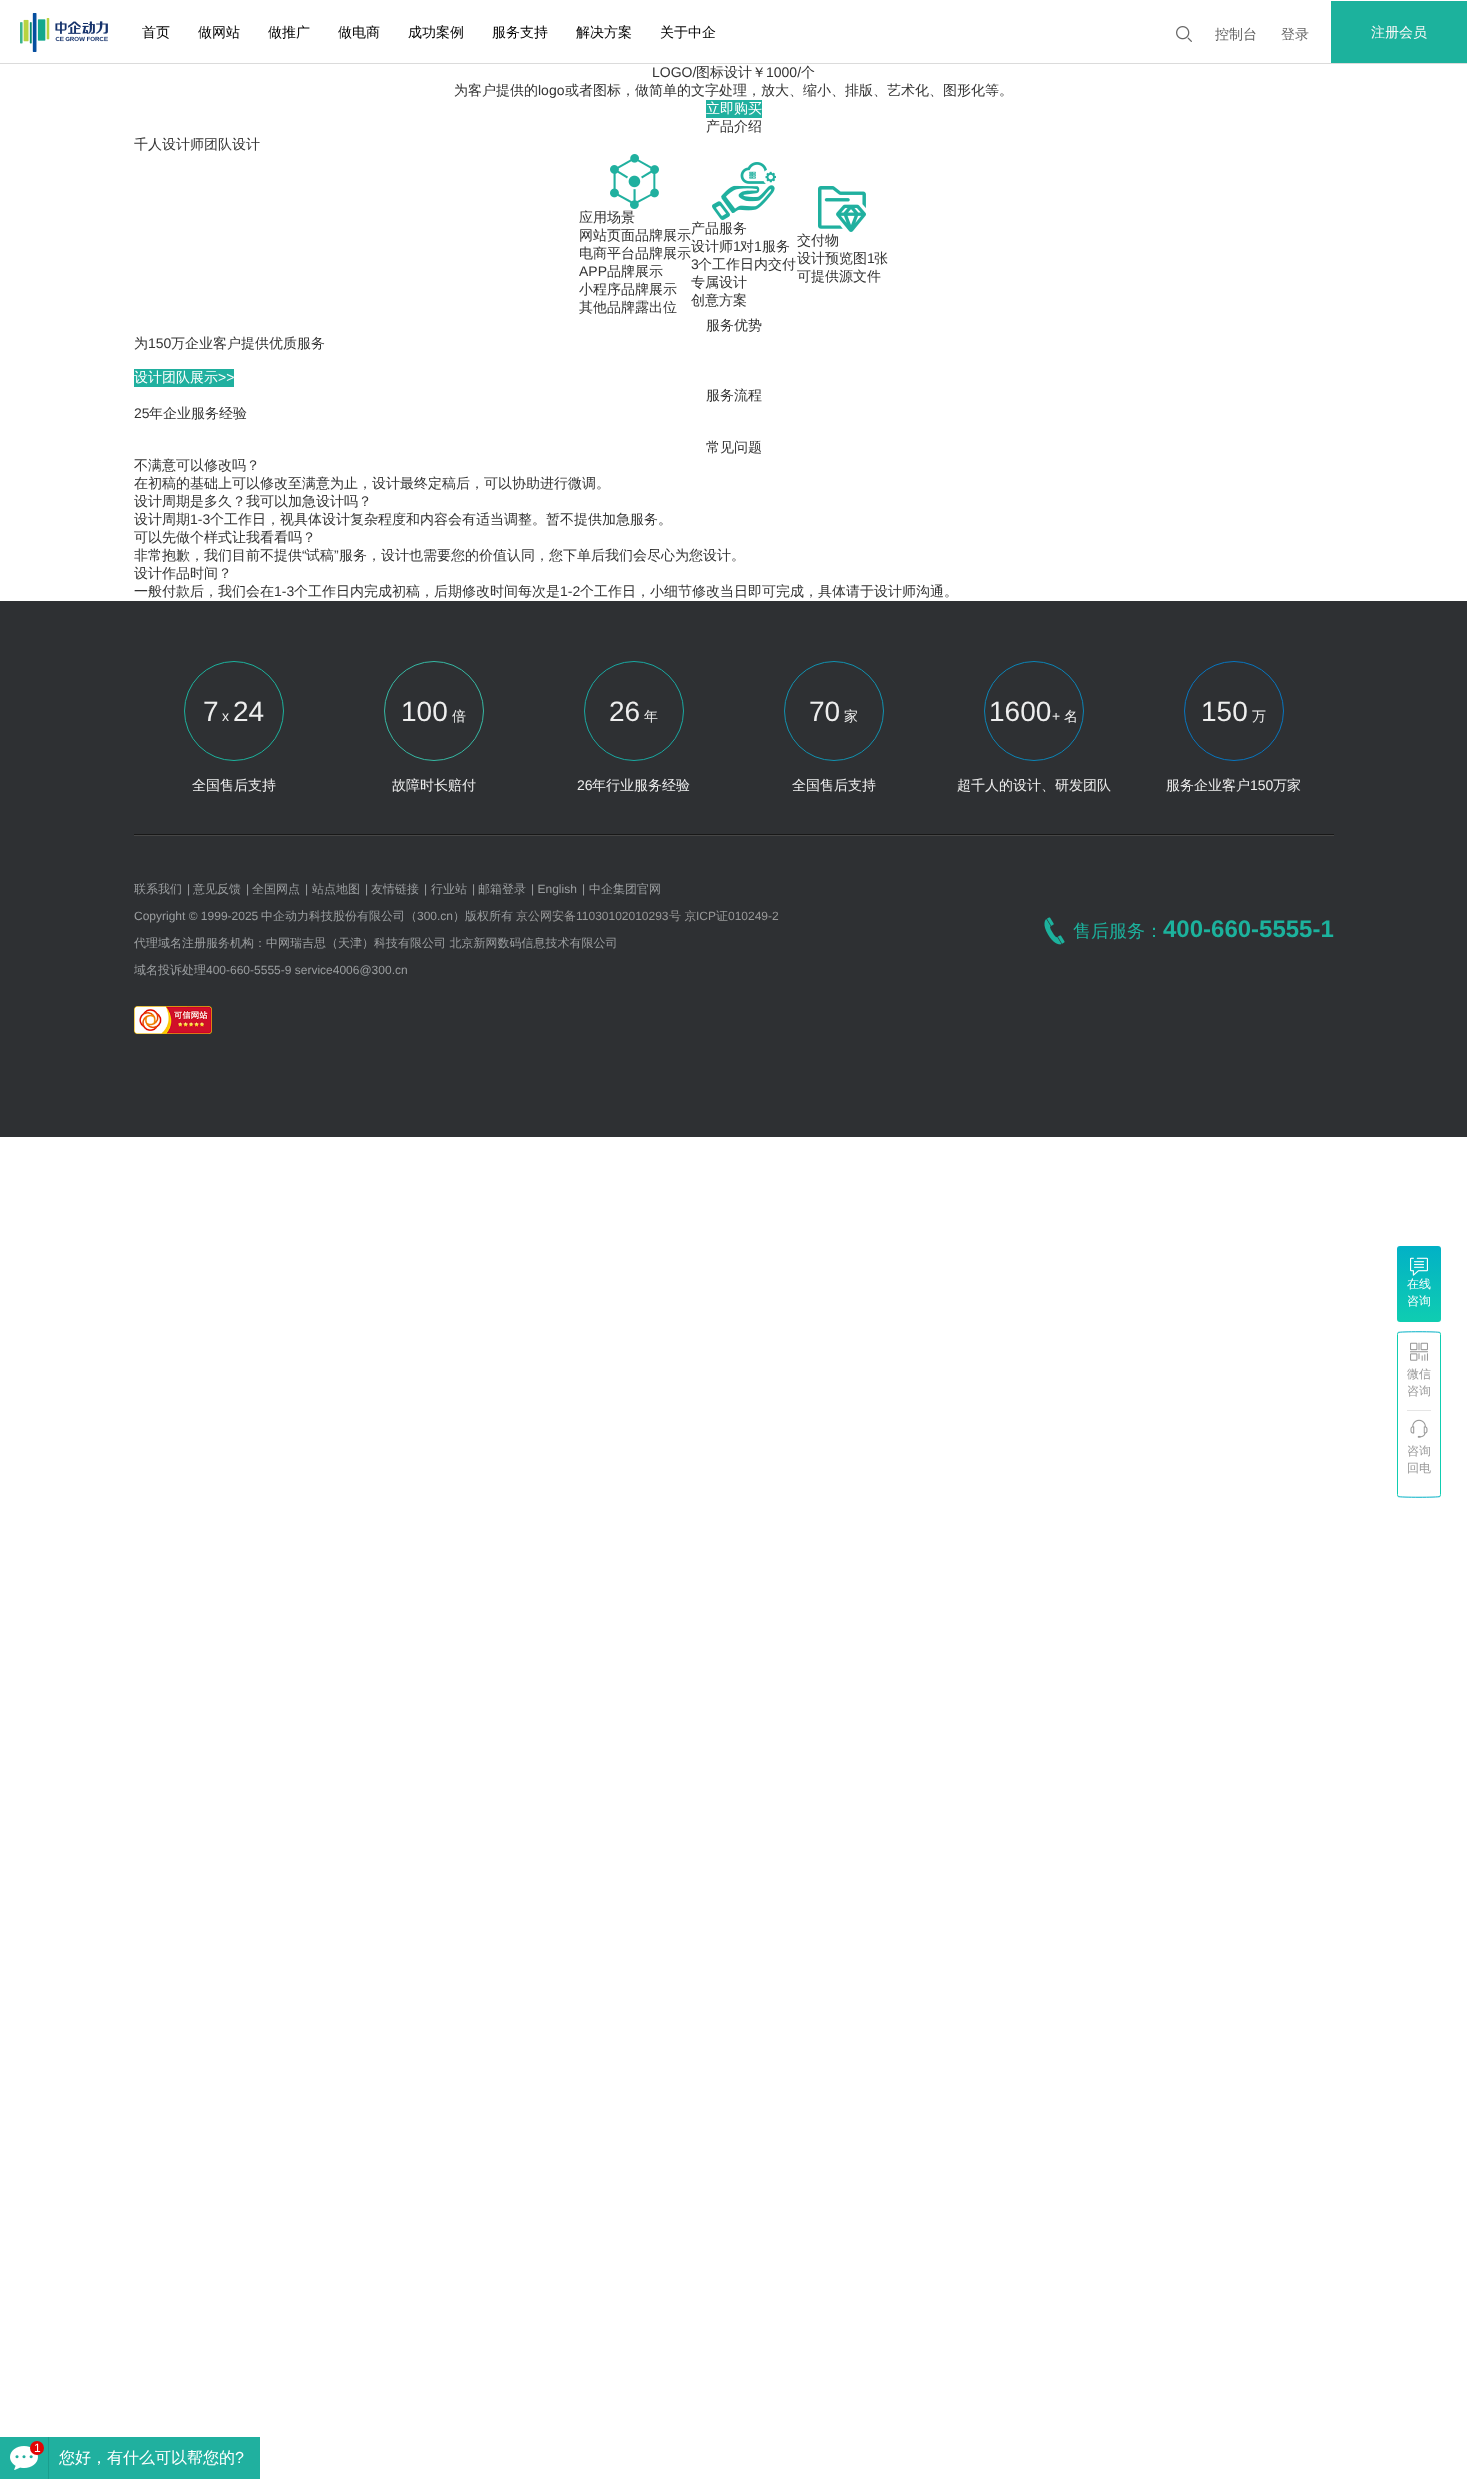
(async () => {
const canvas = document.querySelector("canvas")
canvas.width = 1467
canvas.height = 2479
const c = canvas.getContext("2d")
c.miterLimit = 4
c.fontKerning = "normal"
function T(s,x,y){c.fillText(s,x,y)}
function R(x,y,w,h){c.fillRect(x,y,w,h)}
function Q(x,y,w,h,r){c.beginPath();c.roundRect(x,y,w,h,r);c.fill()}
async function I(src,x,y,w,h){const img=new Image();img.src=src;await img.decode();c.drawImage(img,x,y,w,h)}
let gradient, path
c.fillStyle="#fff"
R(0,0,1467,2479)
c.fillStyle="#dbdbdb"
R(0,63,1467,1)
await I("1.png",20,13,88,39)
c.font="500 14px WenQuanYi Zen Hei"
c.fillStyle="#000"
T("首页",142,37)
T("做网站",198,37)
T("做推广",268,37)
T("做电商",338,37)
T("成功案例",408,37)
T("服务支持",492,37)
T("解决方案",576,37)
T("关于中企",660,37)
await I("2.png",1176,26,16,16)
c.fillStyle="#666"
T("控制台",1215,39)
T("登录",1281,39)
c.fillStyle="#1cb29d"
R(1331,1,136,62)
c.fillStyle="#f7f7f7"
T("注册会员",1371,37)
c.font="14px Liberation Sans"
c.fillStyle="#333"
T("LOGO/",652,77)
c.font="500 14px WenQuanYi Zen Hei"
T("图标设计￥",696,77)
c.font="14px Liberation Sans"
T("1000/",766,77)
c.font="500 14px WenQuanYi Zen Hei"
T("个",801,77)
T("为客户提供的",454,95)
c.font="14px Liberation Sans"
T("logo",538,95)
c.font="500 14px WenQuanYi Zen Hei"
T("或者图标，做简单的文字处理，放大、缩小、排版、艺术化、图形化等。",565,95)
c.fillStyle="#20b09f"
R(706,100,56,18)
c.fillStyle="#fff"
T("立即购买",706,113)
c.fillStyle="#333"
T("产品介绍",706,131)
T("千人设计师团队设计",134,149)
await I("3.png",610,154,49,55)
T("应用场景",579,222)
T("网站页面品牌展示",579,240)
T("电商平台品牌展示",579,258)
c.font="14px Liberation Sans"
T("APP",579,276)
c.font="500 14px WenQuanYi Zen Hei"
T("品牌展示",607,276)
T("小程序品牌展示",579,294)
T("其他品牌露出位",579,312)
await I("4.png",712,162,64,58)
T("产品服务",691,233)
T("设计师",691,251)
c.font="14px Liberation Sans"
T("1",733,251)
c.font="500 14px WenQuanYi Zen Hei"
T("对",740,251)
c.font="14px Liberation Sans"
T("1",754,251)
c.font="500 14px WenQuanYi Zen Hei"
T("服务",762,251)
c.font="14px Liberation Sans"
T("3",691,269)
c.font="500 14px WenQuanYi Zen Hei"
T("个工作日内交付",698,269)
T("专属设计",691,287)
T("创意方案",691,305)
await I("5.png",818,186,48,46)
T("交付物",797,245)
T("设计预览图",797,263)
c.font="14px Liberation Sans"
T("1",867,263)
c.font="500 14px WenQuanYi Zen Hei"
T("张",874,263)
T("可提供源文件",797,281)
T("服务优势",706,330)
T("为",134,348)
c.font="14px Liberation Sans"
T("150",148,348)
c.font="500 14px WenQuanYi Zen Hei"
T("万企业客户提供优质服务",171,348)
c.fillStyle="#20b09f"
R(134,369,100,18)
c.fillStyle="#fff"
T("设计团队展示",134,382)
c.font="14px Liberation Sans"
T(">>",218,382)
c.font="500 14px WenQuanYi Zen Hei"
c.fillStyle="#333"
T("服务流程",706,400)
c.font="14px Liberation Sans"
T("25",134,418)
c.font="500 14px WenQuanYi Zen Hei"
T("年企业服务经验",149,418)
T("常见问题",706,452)
T("不满意可以修改吗？",134,470)
T("在初稿的基础上可以修改至满意为止，设计最终定稿后，可以协助进行微调。",134,488)
T("设计周期是多久？我可以加急设计吗？",134,506)
T("设计周期",134,524)
c.font="14px Liberation Sans"
T("1-3",190,524)
c.font="500 14px WenQuanYi Zen Hei"
T("个工作日，视具体设计复杂程度和内容会有适当调整。暂不提供加急服务。",210,524)
T("可以先做个样式让我看看吗？",134,542)
T("非常抱歉，我们目前不提供",134,560)
c.font="14px Liberation Sans"
T("“",302,560)
c.font="500 14px WenQuanYi Zen Hei"
T("试稿",306,560)
c.font="14px Liberation Sans"
T("”",334,560)
c.font="500 14px WenQuanYi Zen Hei"
T("服务，设计也需要您的价值认同，您下单后我们会尽心为您设计。",339,560)
T("设计作品时间？",134,578)
T("一般付款后，我们会在",134,596)
c.font="14px Liberation Sans"
T("1-3",274,596)
c.font="500 14px WenQuanYi Zen Hei"
T("个工作日内完成初稿，后期修改时间每次是",294,596)
c.font="14px Liberation Sans"
T("1-2",560,596)
c.font="500 14px WenQuanYi Zen Hei"
T("个工作日，小细节修改当日即可完成，具体请于设计师沟通。",580,596)
c.fillStyle="#2e3033"
R(0,601,1467,536)
c.beginPath()
c.arc(234,711,49.5,0,7)
c.strokeStyle="#1cb29d"
c.stroke()
c.font="28px Liberation Sans"
c.fillStyle="#eee"
T("7",203,721)
c.font="14px Liberation Sans"
T("x",222,721)
c.font="28px Liberation Sans"
T("24",233,721)
c.font="500 14px WenQuanYi Zen Hei"
T("全国售后支持",192,790)
c.beginPath()
c.arc(434,711,49.5,0,7)
c.strokeStyle="#36b9a4"
c.stroke()
c.font="28px Liberation Sans"
T("100",401,721)
c.font="500 14px WenQuanYi Zen Hei"
T("倍",452,721)
T("故障时长赔付",392,790)
c.beginPath()
c.arc(634,711,49.5,0,7)
c.strokeStyle="#19a9a2"
c.stroke()
c.font="28px Liberation Sans"
T("26",609,721)
c.font="500 14px WenQuanYi Zen Hei"
T("年",644,721)
c.font="14px Liberation Sans"
T("26",577,790)
c.font="500 14px WenQuanYi Zen Hei"
T("年行业服务经验",592,790)
c.beginPath()
c.arc(834,711,49.5,0,7)
c.strokeStyle="#1192b0"
c.stroke()
c.font="28px Liberation Sans"
T("70",809,721)
c.font="500 14px WenQuanYi Zen Hei"
T("家",844,721)
T("全国售后支持",792,790)
c.beginPath()
c.arc(1034,711,49.5,0,7)
c.strokeStyle="#0b85b7"
c.stroke()
c.font="28px Liberation Sans"
T("1600",989,721)
c.font="14px Liberation Sans"
T("+",1052,721)
c.font="500 14px WenQuanYi Zen Hei"
T("名",1064,721)
T("超千人的设计、研发团队",957,790)
c.beginPath()
c.arc(1234,711,49.5,0,7)
c.strokeStyle="#0776c0"
c.stroke()
c.font="28px Liberation Sans"
T("150",1201,721)
c.font="500 14px WenQuanYi Zen Hei"
T("万",1252,721)
T("服务企业客户",1166,790)
c.font="14px Liberation Sans"
T("150",1250,790)
c.font="500 14px WenQuanYi Zen Hei"
T("万家",1273,790)
c.fillStyle="#181818"
R(134,834,1200,1)
c.fillStyle="#464646"
R(134,835,1200,1)
c.font="500 12px WenQuanYi Zen Hei"
c.fillStyle="#9b9ea0"
T("联系我们",134,893)
c.font="12px Liberation Sans"
T("|",187,893)
c.font="500 12px WenQuanYi Zen Hei"
T("意见反馈",193,893)
c.font="12px Liberation Sans"
T("|",246,893)
c.font="500 12px WenQuanYi Zen Hei"
T("全国网点",252,893)
c.font="12px Liberation Sans"
T("|",305,893)
c.font="500 12px WenQuanYi Zen Hei"
T("站点地图",312,893)
c.font="12px Liberation Sans"
T("|",365,893)
c.font="500 12px WenQuanYi Zen Hei"
T("友情链接",371,893)
c.font="12px Liberation Sans"
T("|",424,893)
c.font="500 12px WenQuanYi Zen Hei"
T("行业站",431,893)
c.font="12px Liberation Sans"
T("|",472,893)
c.font="500 12px WenQuanYi Zen Hei"
T("邮箱登录",478,893)
c.font="12px Liberation Sans"
T("| English",531,893)
T("|",582,893)
c.font="500 12px WenQuanYi Zen Hei"
T("中企集团官网",589,893)
c.font="12px Liberation Sans"
T("Copyright © 1999-2025",134,920)
c.font="500 12px WenQuanYi Zen Hei"
T("中企动力科技股份有限公司（",261,920)
c.font="12px Liberation Sans"
T("300.cn",417,920)
c.font="500 12px WenQuanYi Zen Hei"
T("）版权所有",453,920)
c.fillStyle="#999"
T("京公网安备",516,920)
c.font="12px Liberation Sans"
T("11030102010293",576,920)
c.font="500 12px WenQuanYi Zen Hei"
T("号 京",669,920)
c.font="12px Liberation Sans"
T("ICP",696,920)
c.font="500 12px WenQuanYi Zen Hei"
T("证",716,920)
c.font="12px Liberation Sans"
T("010249-2",728,920)
c.font="500 12px WenQuanYi Zen Hei"
c.fillStyle="#9b9ea0"
T("代理域名注册服务机构：中网瑞吉思（天津）科技有限公司 北京新网数码信息技术有限公司",134,947)
T("域名投诉处理",134,974)
c.font="12px Liberation Sans"
T("400-660-5555-9 service4006@300.cn",206,974)
await I("6.png",134,1006,78,28)
await I("7.png",1044,917,21,28)
c.font="500 18px WenQuanYi Zen Hei"
c.fillStyle="#1cb29d"
T("售后服务：",1073,937)
c.font="bold 24px Liberation Sans"
T("400-660-5555-1",1163,937)
gradient = c.createLinearGradient(1419,1322,1419,1246)
gradient.addColorStop(0,"#0fcdb1")
gradient.addColorStop(1,"#02b1c6")
c.fillStyle = gradient
Q(1397,1246,44,76,3)
await I("8.png",1410,1257,18,19)
c.font="500 12px WenQuanYi Zen Hei"
c.fillStyle="#fff"
T("在线",1407,1288)
T("咨询",1407,1305)
path = new Path2D("M1398 1332.5c1.5-1 40.5-1 42 0")
c.strokeStyle="#02b1c6"
c.stroke(path)
path = new Path2D("M1440 1332.5l.5 2v160l-.5 2")
c.strokeStyle="#0fcdb1"
c.stroke(path)
path = new Path2D("M1440 1496.5c-1.5 1-40.5 1-42 0")
c.strokeStyle="#02b1c6"
c.stroke(path)
path = new Path2D("M1398 1496.5l-.5-2v-160l.5-2")
c.strokeStyle="#0fcdb1"
c.stroke(path)
c.fillStyle="#e5e5e5"
R(1407,1410,24,1)
await I("9.png",1410,1342,18,19)
c.fillStyle="#999"
T("微信",1407,1378)
T("咨询",1407,1395)
await I("10.png",1410,1419,18,19)
T("咨询",1407,1455)
T("回电",1407,1472)
c.fillStyle="#20b09f"
R(0,2437,260,42)
c.fillStyle="#199e8e"
R(48,2437,1,42)
await I("11.png",10,2446,28,24)
c.fillStyle="#e20505"
c.beginPath()
c.arc(37,2448,7,0,7)
c.fill()
c.font="12px Liberation Sans"
c.fillStyle="#fff"
T("1",34,2452)
c.font="500 16px WenQuanYi Zen Hei"
T("您好，有什么可以帮您的",59,2463)
c.font="16px Liberation Sans"
T("?",235,2463)
})()
